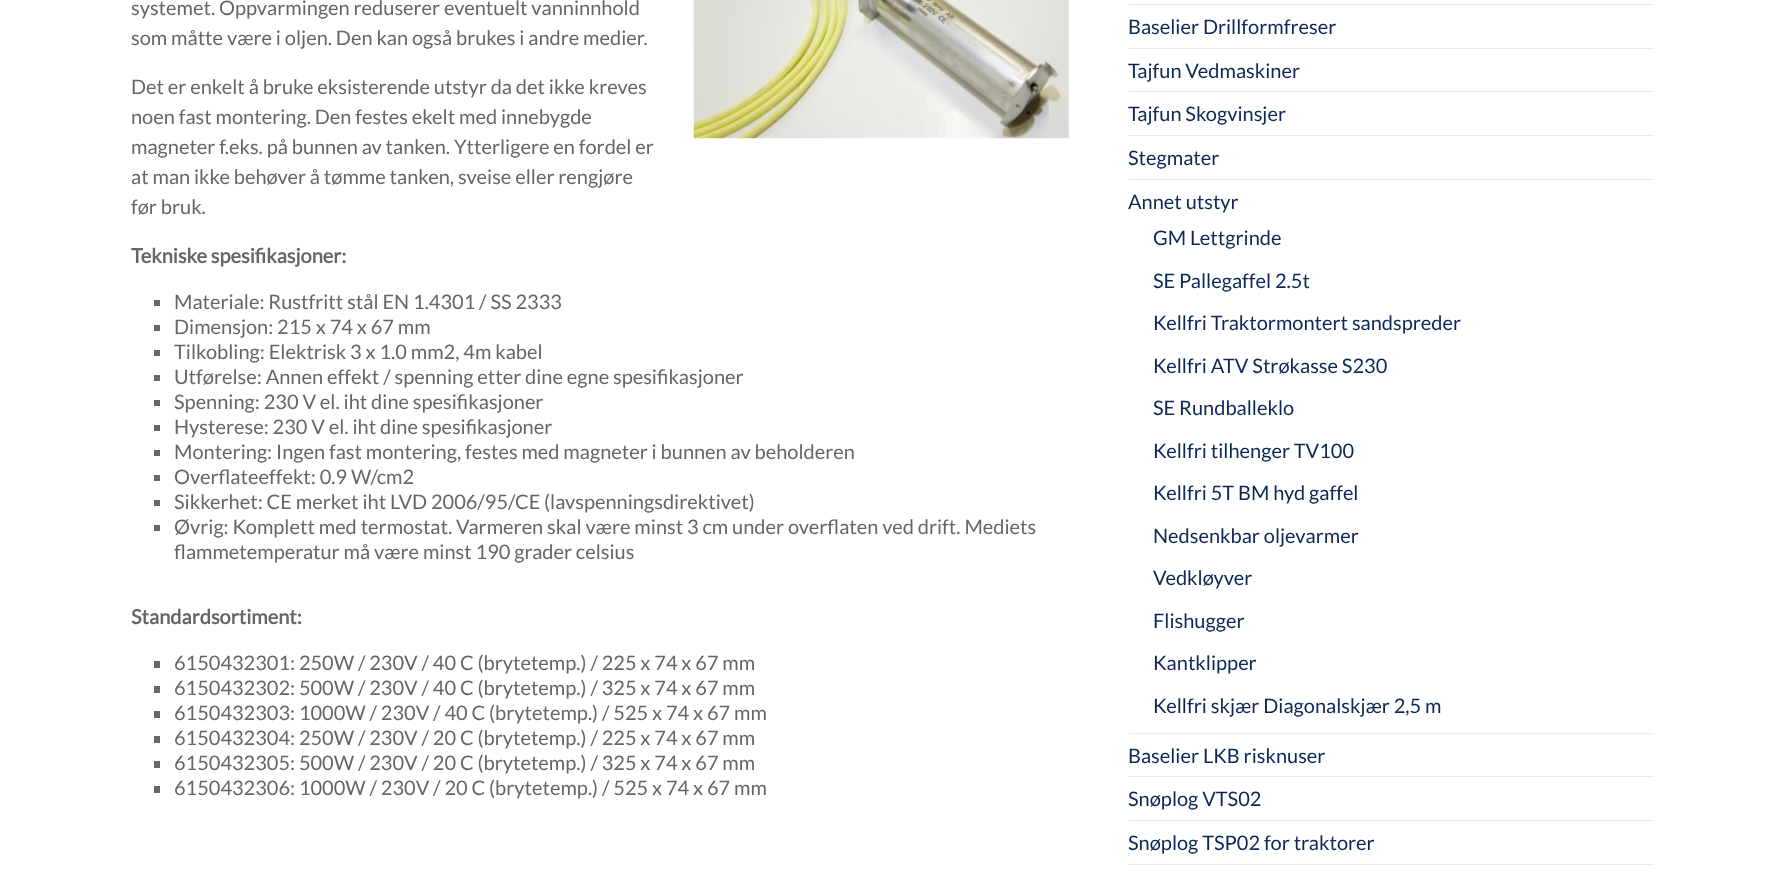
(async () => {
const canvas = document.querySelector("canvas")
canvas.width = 1783
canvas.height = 875
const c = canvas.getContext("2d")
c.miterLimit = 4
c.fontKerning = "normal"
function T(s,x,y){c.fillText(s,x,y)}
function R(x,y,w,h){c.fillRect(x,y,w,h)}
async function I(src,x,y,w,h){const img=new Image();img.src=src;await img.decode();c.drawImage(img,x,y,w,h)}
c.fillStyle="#fff"
R(0,0,1783,875)
c.font="20px Lato"
c.fillStyle="#666"
T("systemet. Oppvarmingen reduserer eventuelt vanninnhold",131,15)
await I("1.png",693,0,376,139)
T("som måtte være i oljen. Den kan også brukes i andre medier.",131,45)
T("Det er enkelt å bruke eksisterende utstyr da det ikke kreves",131,94)
T("noen fast montering. Den festes ekelt med innebygde",131,124)
T("magneter f.eks. på bunnen av tanken. Ytterligere en fordel er",131,154)
T("at man ikke behøver å tømme tanken, sveise eller rengjøre",131,184)
T("før bruk.",131,214)
c.font="bold 20px Lato"
T("Tekniske spesifikasjoner:",131,263)
R(154,300,6,6)
c.font="20px Lato"
T("Materiale: Rustfritt stål EN 1.4301 / SS 2333",174,309)
R(154,325,6,6)
T("Dimensjon: 215 x 74 x 67 mm",174,334)
R(154,350,6,6)
T("Tilkobling: Elektrisk 3 x 1.0 mm2, 4m kabel",174,359)
R(154,375,6,6)
T("Utførelse: Annen effekt / spenning etter dine egne spesifikasjoner",174,384)
R(154,400,6,6)
T("Spenning: 230 V el. iht dine spesifikasjoner",174,409)
R(154,425,6,6)
T("Hysterese: 230 V el. iht dine spesifikasjoner",174,434)
R(154,450,6,6)
T("Montering: Ingen fast montering, festes med magneter i bunnen av beholderen",174,459)
R(154,475,6,6)
T("Overflateeffekt: 0.9 W/cm2",174,484)
R(154,500,6,6)
T("Sikkerhet: CE merket iht LVD 2006/95/CE (lavspenningsdirektivet)",174,509)
R(154,525,6,6)
T("Øvrig: Komplett med termostat. Varmeren skal være minst 3 cm under overflaten ved drift. Mediets",174,534)
T("flammetemperatur må være minst 190 grader celsius",174,559)
c.font="bold 20px Lato"
T("Standardsortiment:",131,624)
R(154,661,6,7)
c.font="20px Lato"
T("6150432301: 250W / 230V / 40 C (brytetemp.) / 225 x 74 x 67 mm",174,670)
R(154,686,6,7)
T("6150432302: 500W / 230V / 40 C (brytetemp.) / 325 x 74 x 67 mm",174,695)
R(154,711,6,7)
T("6150432303: 1000W / 230V / 40 C (brytetemp.) / 525 x 74 x 67 mm",174,720)
R(154,736,6,7)
T("6150432304: 250W / 230V / 20 C (brytetemp.) / 225 x 74 x 67 mm",174,745)
R(154,761,6,7)
T("6150432305: 500W / 230V / 20 C (brytetemp.) / 325 x 74 x 67 mm",174,770)
R(154,786,6,7)
T("6150432306: 1000W / 230V / 20 C (brytetemp.) / 525 x 74 x 67 mm",174,795)
c.fillStyle="#eaeaea"
R(1129,4,525,1)
R(1129,48,525,1)
c.fillStyle="#0d2857"
T("Baselier Drillformfreser",1128,34)
c.fillStyle="#eaeaea"
R(1129,91,525,1)
c.fillStyle="#0d2857"
T("Tajfun Vedmaskiner",1128,78)
c.fillStyle="#eaeaea"
R(1129,135,525,1)
c.fillStyle="#0d2857"
T("Tajfun Skogvinsjer",1128,121)
c.fillStyle="#eaeaea"
R(1129,179,525,1)
c.fillStyle="#0d2857"
T("Stegmater",1128,165)
c.fillStyle="#eaeaea"
R(1129,733,525,1)
c.fillStyle="#0d2857"
T("Annet utstyr",1128,209)
T("GM Lettgrinde",1153,245)
T("SE Pallegaffel 2.5t",1153,288)
T("Kellfri Traktormontert sandspreder",1153,330)
T("Kellfri ATV Strøkasse S230",1153,373)
T("SE Rundballeklo",1153,415)
T("Kellfri tilhenger TV100",1153,458)
T("Kellfri 5T BM hyd gaffel",1153,500)
T("Nedsenkbar oljevarmer",1153,543)
T("Vedkløyver",1153,585)
T("Flishugger",1153,628)
T("Kantklipper",1153,670)
T("Kellfri skjær Diagonalskjær 2,5 m",1153,713)
c.fillStyle="#eaeaea"
R(1129,776,525,1)
c.fillStyle="#0d2857"
T("Baselier LKB risknuser",1128,763)
c.fillStyle="#eaeaea"
R(1129,820,525,1)
c.fillStyle="#0d2857"
T("Snøplog VTS02",1128,806)
c.fillStyle="#eaeaea"
R(1129,864,525,1)
c.fillStyle="#0d2857"
T("Snøplog TSP02 for traktorer",1128,850)
})()
